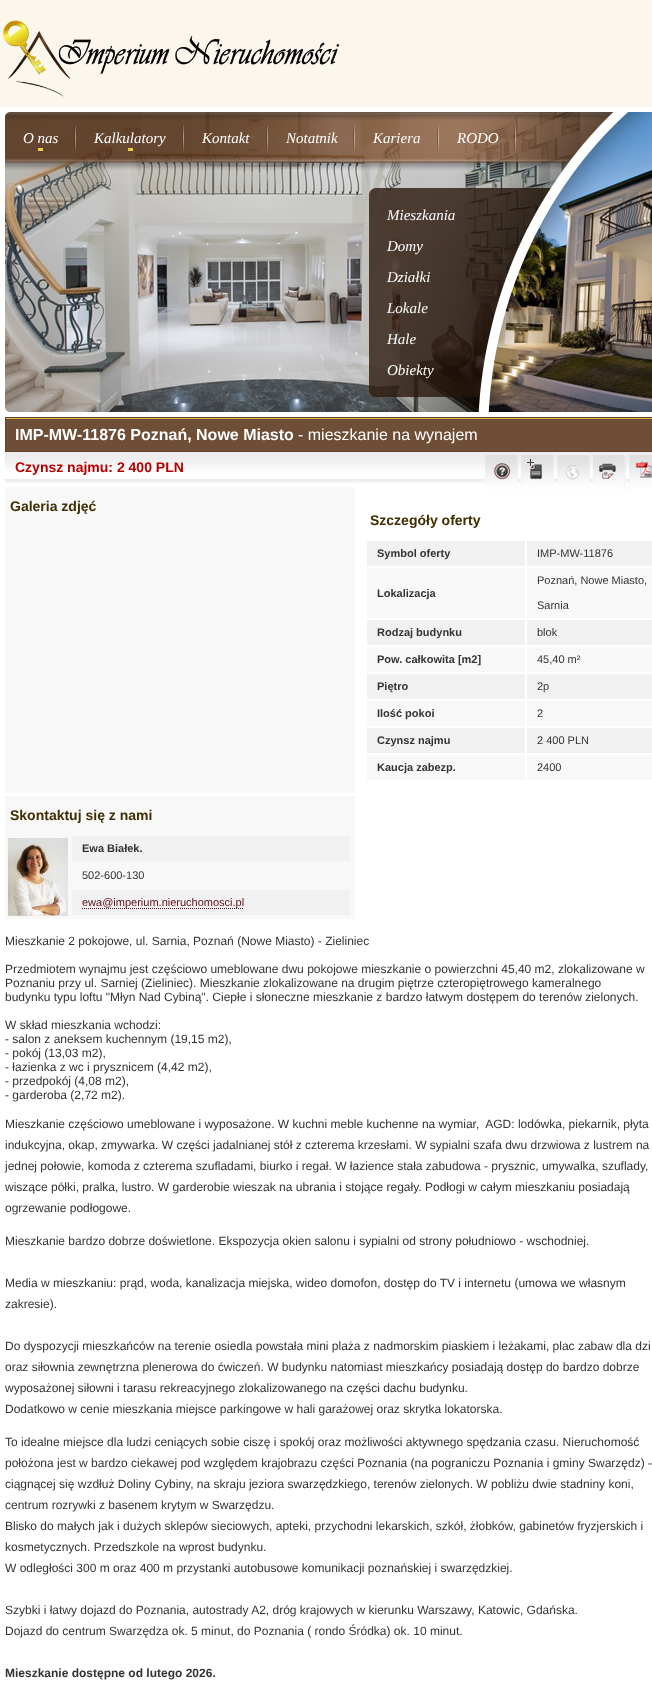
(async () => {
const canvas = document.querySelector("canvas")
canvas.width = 652
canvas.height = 1696
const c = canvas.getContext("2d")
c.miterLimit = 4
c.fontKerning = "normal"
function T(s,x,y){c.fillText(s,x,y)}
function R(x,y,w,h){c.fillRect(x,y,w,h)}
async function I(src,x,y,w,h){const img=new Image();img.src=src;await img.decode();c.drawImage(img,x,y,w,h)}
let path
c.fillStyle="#fcf7ec"
R(0,0,652,1696)
await I("1.png",0,31,652,81)
await I("2.png",0,20,340,77)
c.fillStyle="#fff"
R(0,112,652,1584)
await I("9.png",5,112,647,300)
await I("3.png",74,125,2,28)
c.fillStyle="#edcc47"
R(38,148,5,3)
c.font="italic 15px Liberation Serif"
c.fillStyle="#fff"
T("O nas",23,143)
await I("4.png",182,125,2,28)
c.fillStyle="#edcc47"
R(128,148,5,3)
c.fillStyle="#fff"
T("Kalkulatory",94,143)
await I("5.png",266,125,2,28)
T("Kontakt",202,143)
await I("6.png",353,125,2,28)
T("Notatnik",286,143)
await I("7.png",437,125,2,28)
T("Kariera",373,143)
await I("8.png",514,125,2,28)
T("RODO",457,143)
T("Mieszkania",387,220)
T("Domy",387,251)
T("Działki",387,282)
T("Lokale",387,313)
T("Hale",387,344)
T("Obiekty",387,375)
await I("10.png",5,417,647,35)
c.font="bold 16px Liberation Sans"
T("IMP-MW-11876 Poznań, Nowe Miasto",15,440)
c.font="16px Liberation Sans"
T("- mieszkanie na wynajem",298,440)
await I("11.png",5,452,647,31)
c.font="bold 14px Liberation Sans"
c.fillStyle="#b60000"
T("Czynsz najmu: 2 400 PLN",15,472)
await I("12.png",485,455,33,35)
await I("13.png",521,455,33,35)
await I("14.png",557,454,33,36)
await I("15.png",593,454,33,36)
await I("16.png",629,455,23,34)
c.fillStyle="#f8f8f8"
R(5,487,350,306)
c.fillStyle="#3f2e03"
T("Galeria zdjęć",10,511)
T("Szczegóły oferty",370,525)
c.fillStyle="#f1f1f1"
R(367,541,158,25)
c.font="bold 11px Liberation Sans"
c.fillStyle="#333"
T("Symbol oferty",377,557)
c.fillStyle="#f1f1f1"
R(527,541,125,25)
c.font="11px Liberation Sans"
c.fillStyle="#333"
T("IMP-MW-11876",537,557)
c.fillStyle="#f8f8f8"
R(367,568,158,50)
c.font="bold 11px Liberation Sans"
c.fillStyle="#333"
T("Lokalizacja",377,597)
c.fillStyle="#f8f8f8"
R(527,568,125,50)
c.font="11px Liberation Sans"
c.fillStyle="#333"
T("Poznań, Nowe Miasto,",537,584)
T("Sarnia",537,609)
c.fillStyle="#f1f1f1"
R(367,620,158,25)
c.font="bold 11px Liberation Sans"
c.fillStyle="#333"
T("Rodzaj budynku",377,636)
c.fillStyle="#f1f1f1"
R(527,620,125,25)
c.font="11px Liberation Sans"
c.fillStyle="#333"
T("blok",537,636)
c.fillStyle="#f8f8f8"
R(367,647,158,25)
c.font="bold 11px Liberation Sans"
c.fillStyle="#333"
T("Pow. całkowita [m2]",377,663)
c.fillStyle="#f8f8f8"
R(527,647,125,25)
c.font="11px Liberation Sans"
c.fillStyle="#333"
T("45,40 m²",537,663)
c.fillStyle="#f1f1f1"
R(367,674,158,25)
c.font="bold 11px Liberation Sans"
c.fillStyle="#333"
T("Piętro",377,690)
c.fillStyle="#f1f1f1"
R(527,674,125,25)
c.font="11px Liberation Sans"
c.fillStyle="#333"
T("2p",537,690)
c.fillStyle="#f8f8f8"
R(367,701,158,25)
c.font="bold 11px Liberation Sans"
c.fillStyle="#333"
T("Ilość pokoi",377,717)
c.fillStyle="#f8f8f8"
R(527,701,125,25)
c.font="11px Liberation Sans"
c.fillStyle="#333"
T("2",537,717)
c.fillStyle="#f1f1f1"
R(367,728,158,25)
c.font="bold 11px Liberation Sans"
c.fillStyle="#333"
T("Czynsz najmu",377,744)
c.fillStyle="#f1f1f1"
R(527,728,125,25)
c.font="11px Liberation Sans"
c.fillStyle="#333"
T("2 400 PLN",537,744)
c.fillStyle="#f8f8f8"
R(367,755,158,25)
c.font="bold 11px Liberation Sans"
c.fillStyle="#333"
T("Kaucja zabezp.",377,771)
c.fillStyle="#f8f8f8"
R(527,755,125,25)
c.font="11px Liberation Sans"
c.fillStyle="#333"
T("2400",537,771)
c.fillStyle="#f8f8f8"
R(5,796,350,123)
c.font="bold 14px Liberation Sans"
c.fillStyle="#3f2e03"
T("Skontaktuj się z nami",10,820)
await I("17.png",8,838,60,78)
c.fillStyle="#f1f1f1"
R(72,836,278,25)
c.font="bold 11px Liberation Sans"
c.fillStyle="#333"
T("Ewa Białek.",82,852)
c.font="11px Liberation Sans"
T("502-600-130",82,879)
c.fillStyle="#f1f1f1"
R(72,890,278,25)
path = new Path2D("M82 908.5h162")
c.strokeStyle="#5c1010"
c.setLineDash([1,1])
c.stroke(path)
c.fillStyle="#5c1010"
T("ewa@imperium.nieruchomosci.pl",82,906)
c.font="12px Liberation Sans"
c.fillStyle="#333"
T("Mieszkanie 2 pokojowe, ul. Sarnia, Poznań (Nowe Miasto) - Zieliniec",5,945)
T("Przedmiotem wynajmu jest częściowo umeblowane dwu pokojowe mieszkanie o powierzchni 45,40 m2, zlokalizowane w",5,973)
T("Poznaniu przy ul. Sarniej (Zieliniec). Mieszkanie zlokalizowane na drugim piętrze czteropiętrowego kameralnego",5,987)
T("budynku typu loftu \"Młyn Nad Cybiną\". Ciepłe i słoneczne mieszkanie z bardzo łatwym dostępem do terenów zielonych.",5,1001)
T("W skład mieszkania wchodzi:",5,1029)
T("- salon z aneksem kuchennym (19,15 m2),",5,1043)
T("- pokój (13,03 m2),",5,1057)
T("- łazienka z wc i prysznicem (4,42 m2),",5,1071)
T("- przedpokój (4,08 m2),",5,1085)
T("- garderoba (2,72 m2).",5,1099)
T("Mieszkanie częściowo umeblowane i wyposażone. W kuchni meble kuchenne na wymiar,  AGD: lodówka, piekarnik, płyta",5,1128)
T("indukcyjna, okap, zmywarka. W części jadalnianej stół z czterema krzesłami. W sypialni szafa dwu drzwiowa z lustrem na",5,1149)
T("jednej połowie, komoda z czterema szufladami, biurko i regał. W łazience stała zabudowa - prysznic, umywalka, szuflady,",5,1170)
T("wiszące półki, pralka, lustro. W garderobie wieszak na ubrania i stojące regały. Podłogi w całym mieszkaniu posiadają",5,1191)
T("ogrzewanie podłogowe.",5,1212)
T("Mieszkanie bardzo dobrze doświetlone. Ekspozycja okien salonu i sypialni od strony południowo - wschodniej.",5,1245)
T("Media w mieszkaniu: prąd, woda, kanalizacja miejska, wideo domofon, dostęp do TV i internetu (umowa we własnym",5,1287)
T("zakresie).",5,1308)
T("Do dyspozycji mieszkańców na terenie osiedla powstała mini plaża z nadmorskim piaskiem i leżakami, plac zabaw dla dzi",5,1350)
T("oraz siłownia zewnętrzna plenerowa do ćwiczeń. W budynku natomiast mieszkańcy posiadają dostęp do bardzo dobrze",5,1371)
T("wyposażonej siłowni i tarasu rekreacyjnego zlokalizowanego na części dachu budynku.",5,1392)
T("Dodatkowo w cenie mieszkania miejsce parkingowe w hali garażowej oraz skrytka lokatorska.",5,1413)
T("To idealne miejsce dla ludzi ceniących sobie ciszę i spokój oraz możliwości aktywnego spędzania czasu. Nieruchomość",5,1446)
T("położona jest w bardzo ciekawej pod względem krajobrazu części Poznania (na pograniczu Poznania i gminy Swarzędz) –",5,1467)
T("ciągnącej się wzdłuż Doliny Cybiny, na skraju jeziora swarzędzkiego, terenów zielonych. W pobliżu dwie stadniny koni,",5,1488)
T("centrum rozrywki z basenem krytym w Swarzędzu.",5,1509)
T("Blisko do małych jak i dużych sklepów sieciowych, apteki, przychodni lekarskich, szkół, żłobków, gabinetów fryzjerskich i",5,1530)
T("kosmetycznych. Przedszkole na wprost budynku.",5,1551)
T("W odległości 300 m oraz 400 m przystanki autobusowe komunikacji poznańskiej i swarzędzkiej.",5,1572)
T("Szybki i łatwy dojazd do Poznania, autostrady A2, dróg krajowych w kierunku Warszawy, Katowic, Gdańska.",5,1614)
T("Dojazd do centrum Swarzędza ok. 5 minut, do Poznania ( rondo Śródka) ok. 10 minut.",5,1635)
c.font="bold 12px Liberation Sans"
T("Mieszkanie dostępne od lutego 2026.",5,1677)
})()
